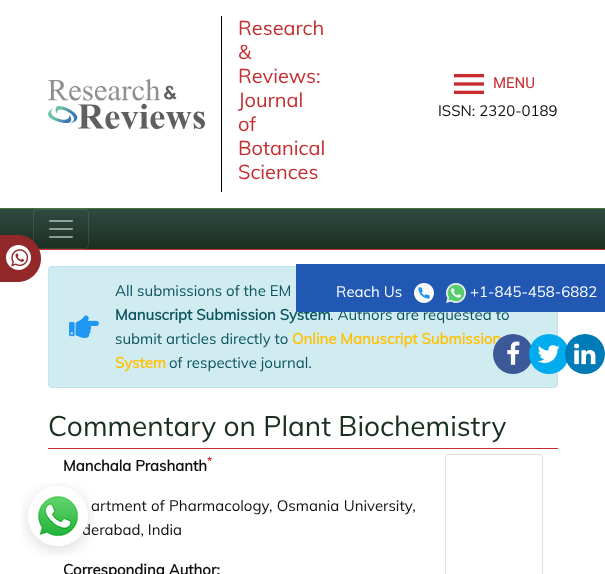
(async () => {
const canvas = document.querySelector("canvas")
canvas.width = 605
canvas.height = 574
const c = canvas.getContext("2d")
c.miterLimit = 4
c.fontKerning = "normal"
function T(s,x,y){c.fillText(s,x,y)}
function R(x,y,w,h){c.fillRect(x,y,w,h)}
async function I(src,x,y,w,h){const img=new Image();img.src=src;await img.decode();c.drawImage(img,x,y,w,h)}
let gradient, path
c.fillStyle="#fff"
R(0,0,605,574)
await I("1.png",48,79,157,50)
c.fillStyle="#000"
R(221,16,1,176)
c.font="20px Muli"
c.fillStyle="#c52d2f"
T("Research",238,35)
T("&",238,59)
T("Reviews:",238,83)
T("Journal",238,107)
T("of",238,131)
T("Botanical",238,155)
T("Sciences",238,179)
await I("2.png",454,74,30,20)
c.font="15px Roboto"
T("MENU",493,88)
c.font="15px Muli"
c.fillStyle="#101010"
T("ISSN: 2320-0189",438,116)
gradient = c.createLinearGradient(303,209,303,249)
gradient.addColorStop(0,"#304a42")
gradient.addColorStop(1,"#1a2f20")
c.fillStyle = gradient
R(0,209,605,40)
c.fillStyle="#467837"
R(0,208,605,1)
c.fillStyle="#c52d2f"
R(39,249,566,1)
c.beginPath()
c.roundRect(33.5,209.5,55,39,3.5)
c.strokeStyle="#ffffff1a"
c.stroke()
await I("3.png",49,220,24,18)
c.fillStyle="#922829"
path = new Path2D("M-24 235h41.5c13 0 23.5 10.5 23.5 23.5c0 13-10.5 23.5-23.5 23.5h-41.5z")
c.fill(path)
c.fillStyle="#fff"
c.beginPath()
c.arc(18.5,257.5,12.5,0,7)
c.fill()
await I("4.png",11,249,18,18)
c.fillStyle="#d1ecf1"
c.beginPath()
c.roundRect(48.5,266.5,509,121,3.5)
c.fill()
c.strokeStyle="#bee5eb"
c.stroke()
await I("5.png",69,315,30,23)
c.fillStyle="#0c5460"
T("All submissions of the EM",115,296)
c.font="bold 15px Muli"
T("Manuscript Submission System",115,320)
c.font="15px Muli"
T(". Authors are requested to",330,320)
T("submit articles directly to",115,344)
c.font="bold 15px Muli"
c.fillStyle="#ffc107"
T("Online Manuscript Submission",292,344)
T("System",115,368)
c.font="15px Muli"
c.fillStyle="#0c5460"
T("of respective journal.",169,368)
c.fillStyle="#2158b3"
R(296,264,309,48)
c.fillStyle="#fff"
T("Reach Us",336,297)
await I("6.png",414,283,20,20)
await I("7.png",446,283,20,20)
T("+1-845-458-6882",470,297)
c.fillStyle="#3b5998"
c.beginPath()
c.arc(513,354,20,0,7)
c.fill()
await I("8.png",507,341,13,24)
c.fillStyle="#00aced"
c.beginPath()
c.arc(549,354,20,0,7)
c.fill()
await I("9.png",537,345,23,18)
c.fillStyle="#007bb6"
c.beginPath()
c.arc(585,354,20,0,7)
c.fill()
await I("10.png",574,343,22,22)
c.fillStyle="#c52d2f"
R(48,448,510,1)
c.font="28px Muli"
c.fillStyle="#1a2f20"
T("Commentary on Plant Biochemistry",48,436)
c.font="bold 11px Muli"
c.fillStyle="#c52d2f"
T("*",207,465)
c.font="bold 15px Muli"
c.fillStyle="#101010"
T("Manchala Prashanth",63,471)
c.wordSpacing="0.5px"
c.font="15px Muli"
T("artment of Pharmacology, Osmania University,",91,511)
c.wordSpacing="0px"
T("derabad, India",82,535)
c.font="bold 15px Muli"
T("Corresponding Author:",63,575)
c.beginPath()
c.roundRect(445.5,454.5,97,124,3.5)
c.strokeStyle="#dfdfdf"
c.stroke()
await I("11.png",21,483,74,73)
})()
